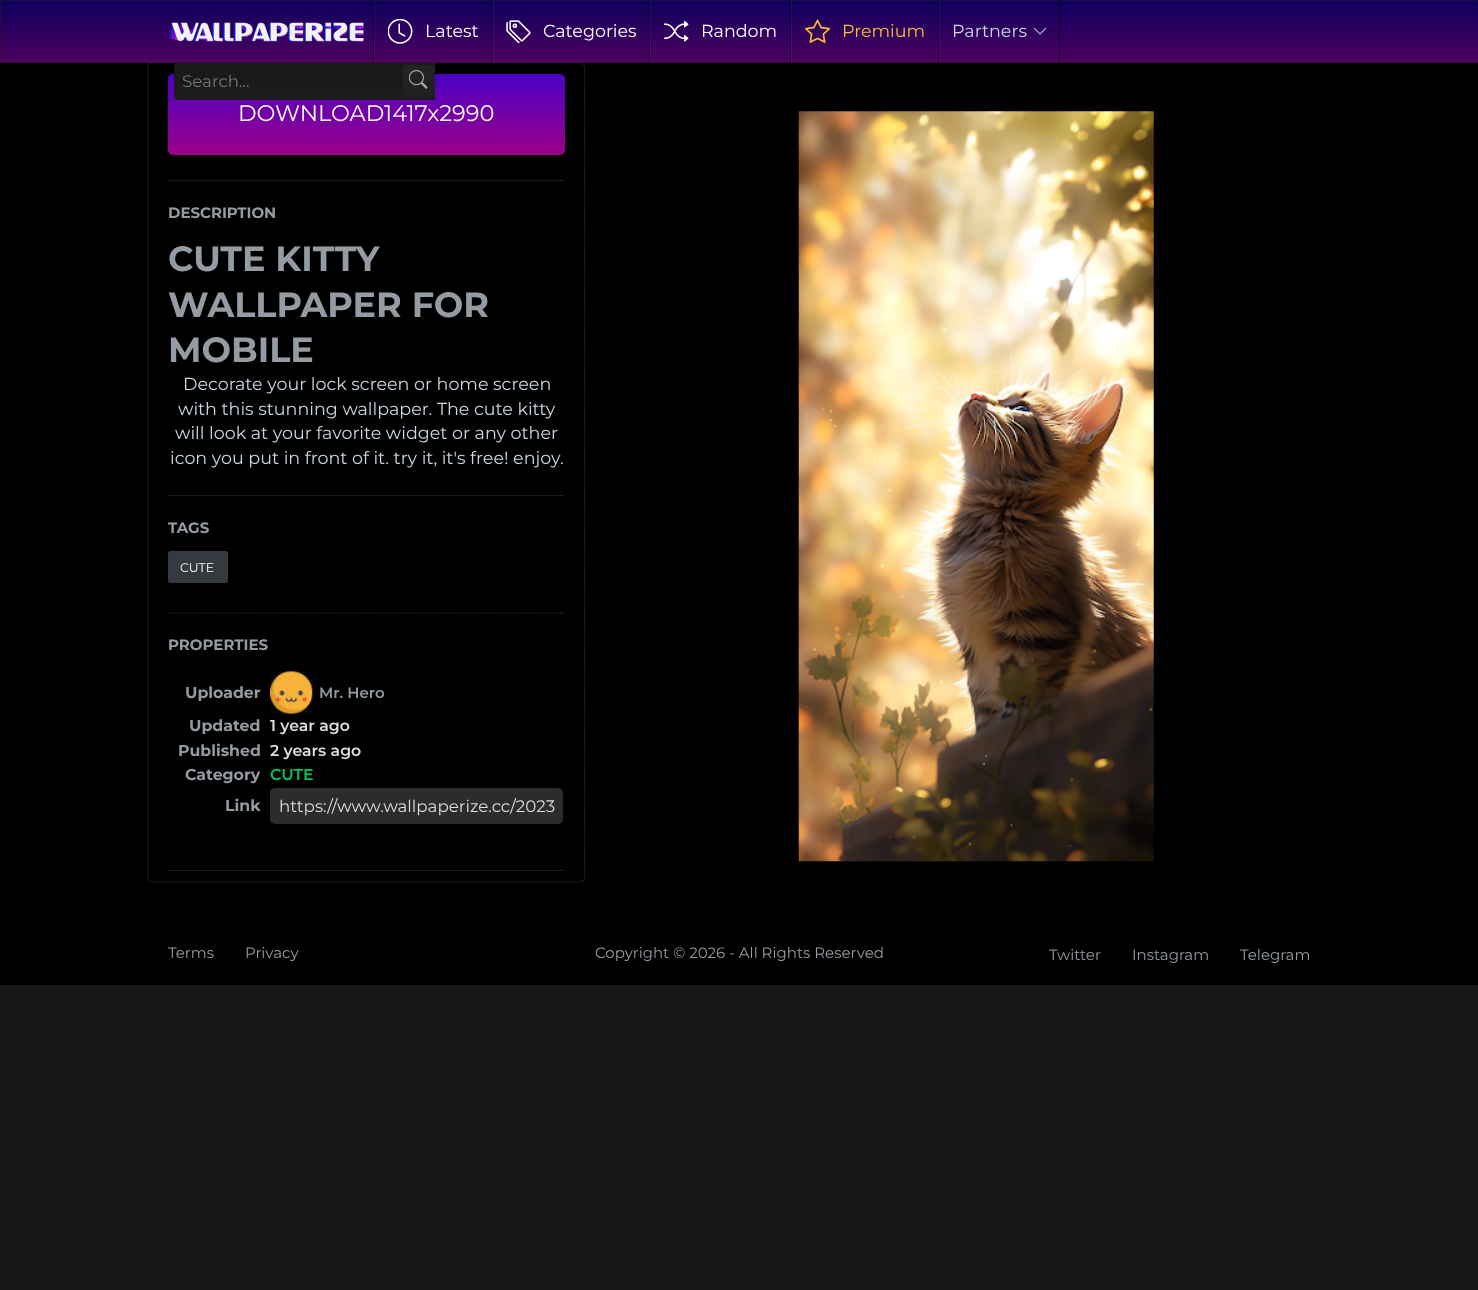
(async () => {
const canvas = document.querySelector("canvas")
canvas.width = 1478
canvas.height = 1290
const c = canvas.getContext("2d")
c.miterLimit = 4
c.fontKerning = "normal"
function T(s,x,y){c.fillText(s,x,y)}
function R(x,y,w,h){c.fillRect(x,y,w,h)}
function Q(x,y,w,h,r){c.beginPath();c.roundRect(x,y,w,h,r);c.fill()}
async function I(src,x,y,w,h){const img=new Image();img.src=src;await img.decode();c.drawImage(img,x,y,w,h)}
let gradient, path
c.fillStyle="#171717"
R(0,0,1478,1290)
c.fillStyle="#000"
R(0,63,1478,922)
path = new Path2D("M152.5 63h427.5c2.5 0 4.5 2 4.5 4.5v810c0 2.5-2 4.5-4.5 4.5h-427.5c-2.5 0-4.5-2-4.5-4.5v-810c0-2.5 2-4.5 4.5-4.5z")
c.strokeStyle="#333"
c.lineWidth=1.2
c.setLineDash([1.25,1.25])
c.stroke(path)
Q(149,64,435,127,5)
c.fillStyle="#0000008c"
c.filter="blur(3px)"
c.beginPath()
c.rect(0,0,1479,63)
c.fill()
c.filter="none"
gradient = c.createLinearGradient(739,0,739,63)
gradient.addColorStop(0,"#0e005d")
gradient.addColorStop(1,"#4e005f")
c.fillStyle = gradient
R(0,0,1478,63)
c.strokeStyle="#1f1f1f80"
c.lineWidth=1
c.setLineDash([])
c.strokeRect(.5,.5,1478,62)
c.fillStyle="#00000080"
R(373,0,1,63)
await I("1.png",169,22,195,20)
R(491,0,1,63)
c.fillStyle="#ffffff0d"
R(374,0,1,63)
await I("2.png",388,19,25,25)
c.font="100 17.5px Montserrat"
c.fillStyle="#fff"
T("Latest",425,37)
c.fillStyle="#00000080"
R(649,0,1,63)
c.fillStyle="#ffffff0d"
R(493,0,1,63)
await I("3.png",506,20,25,24)
c.fillStyle="#fff"
T("Categories",543,37)
c.fillStyle="#00000080"
R(790,0,1,63)
c.fillStyle="#ffffff0d"
R(650,0,1,63)
await I("4.png",664,20,25,22)
c.fillStyle="#fff"
T("Random",701,37)
c.fillStyle="#00000080"
R(938,0,1,63)
c.fillStyle="#ffffff0d"
R(791,0,1,63)
await I("5.png",805,19,25,24)
c.fillStyle="#fb3"
T("Premium",842,37)
c.fillStyle="#00000080"
R(1059,0,1,63)
c.fillStyle="#ffffff0d"
R(939,0,1,63)
c.fillStyle="#cbd5e1"
T("Partners",952,37)
await I("6.png",1033,28,14,7)
gradient = c.createLinearGradient(366,74,366,196)
gradient.addColorStop(0,"#4b00c5")
gradient.addColorStop(1,"#c50069")
c.fillStyle = gradient
Q(168,74,397,81,5)
gradient = c.createLinearGradient(304,62,304,100)
gradient.addColorStop(0,"#191919")
gradient.addColorStop(1,"#1c1c1c")
c.fillStyle = gradient
c.beginPath()
c.roundRect(174,63,261,37,[4,0,0,4])
c.fill()
c.font="100 16.7px Montserrat"
c.fillStyle="#757575"
T("Search...",182,87)
gradient = c.createLinearGradient(419,65,419,98)
gradient.addColorStop(0,"#242424")
gradient.addColorStop(1,"#1f1f1f")
c.fillStyle = gradient
c.beginPath()
c.roundRect(403,65,32,33,[0,4,4,0])
c.fill()
await I("7.png",409,70,19,19)
c.font="100 22.5px Montserrat"
c.fillStyle="#fff"
T("DOWNLOAD1417x2990",238,121)
path = new Path2D("M167.5 180.5h397.5")
c.strokeStyle="#333"
c.lineWidth=1.2
c.setLineDash([1.25,1.25])
c.stroke(path)
c.fillStyle="#000"
Q(149,191,435,315,5)
c.font="bold 15px Montserrat"
c.fillStyle="#949ba2"
T("DESCRIPTION",168,218)
c.font="bold 35px Montserrat"
T("CUTE KITTY",168,271)
T("WALLPAPER FOR",168,317)
T("MOBILE",168,362)
c.font="100 17.5px Montserrat"
c.fillStyle="#cbd5e1"
T("Decorate your lock screen or home screen",183,390)
T("with this stunning wallpaper. The cute kitty",178,415)
T("will look at your favorite widget or any other",175,439)
T("icon you put in front of it. try it, it's free! enjoy.",170,464)
path = new Path2D("M167.5 495.5h397.5")
c.stroke(path)
c.fillStyle="#000"
Q(149,506,435,118,5)
c.font="bold 15px Montserrat"
c.fillStyle="#949ba2"
T("TAGS",168,533)
c.fillStyle="#353940"
Q(168,551,60,32,2.5)
c.font="100 12.5px Montserrat"
c.fillStyle="#fff"
T("CUTE",180,572)
path = new Path2D("M167.5 613h397.5")
c.stroke(path)
c.fillStyle="#000"
Q(149,624,435,257,5)
c.font="bold 15px Montserrat"
c.fillStyle="#949ba2"
T("PROPERTIES",168,650)
c.font="bold 15.75px Montserrat"
T("Uploader",185,698)
c.fillStyle="#060606"
Q(270,671,43,43,5)
await I("8.png",270,671,43,43)
c.font="600 15px Montserrat"
c.fillStyle="#949ba2"
T("Mr. Hero",319,698)
c.font="bold 15.75px Montserrat"
T("Updated",189,731)
c.font="600 15.75px Montserrat"
c.fillStyle="#ddd"
T("1 year ago",270,731)
c.font="bold 15.75px Montserrat"
c.fillStyle="#949ba2"
T("Published",178,756)
c.font="600 15.75px Montserrat"
c.fillStyle="#ddd"
T("2 years ago",270,756)
c.font="bold 15.75px Montserrat"
c.fillStyle="#949ba2"
T("Category",185,780)
c.font="600 15.75px Montserrat"
c.fillStyle="#00c55f"
T("CUTE",270,780)
c.font="bold 15.75px Montserrat"
c.fillStyle="#949ba2"
T("Link",225,811)
c.fillStyle="#2c2c2c"
Q(270,788,293,36,5)
c.font="100 16.7px Montserrat"
c.fillStyle="#ddd"
T("https://www.wallpaperize.cc/2023",279,812)
path = new Path2D("M167.5 870.5h397.5")
c.stroke(path)
await I("9.png",798,111,356,751)
c.font="100 15px Montserrat"
c.fillStyle="#949ba2"
T("Terms",168,958)
T("Privacy",245,958)
T("Copyright © 2026 - All Rights Reserved",595,958)
T("Twitter",1049,960)
T("Instagram",1132,960)
T("Telegram",1240,960)
})()
